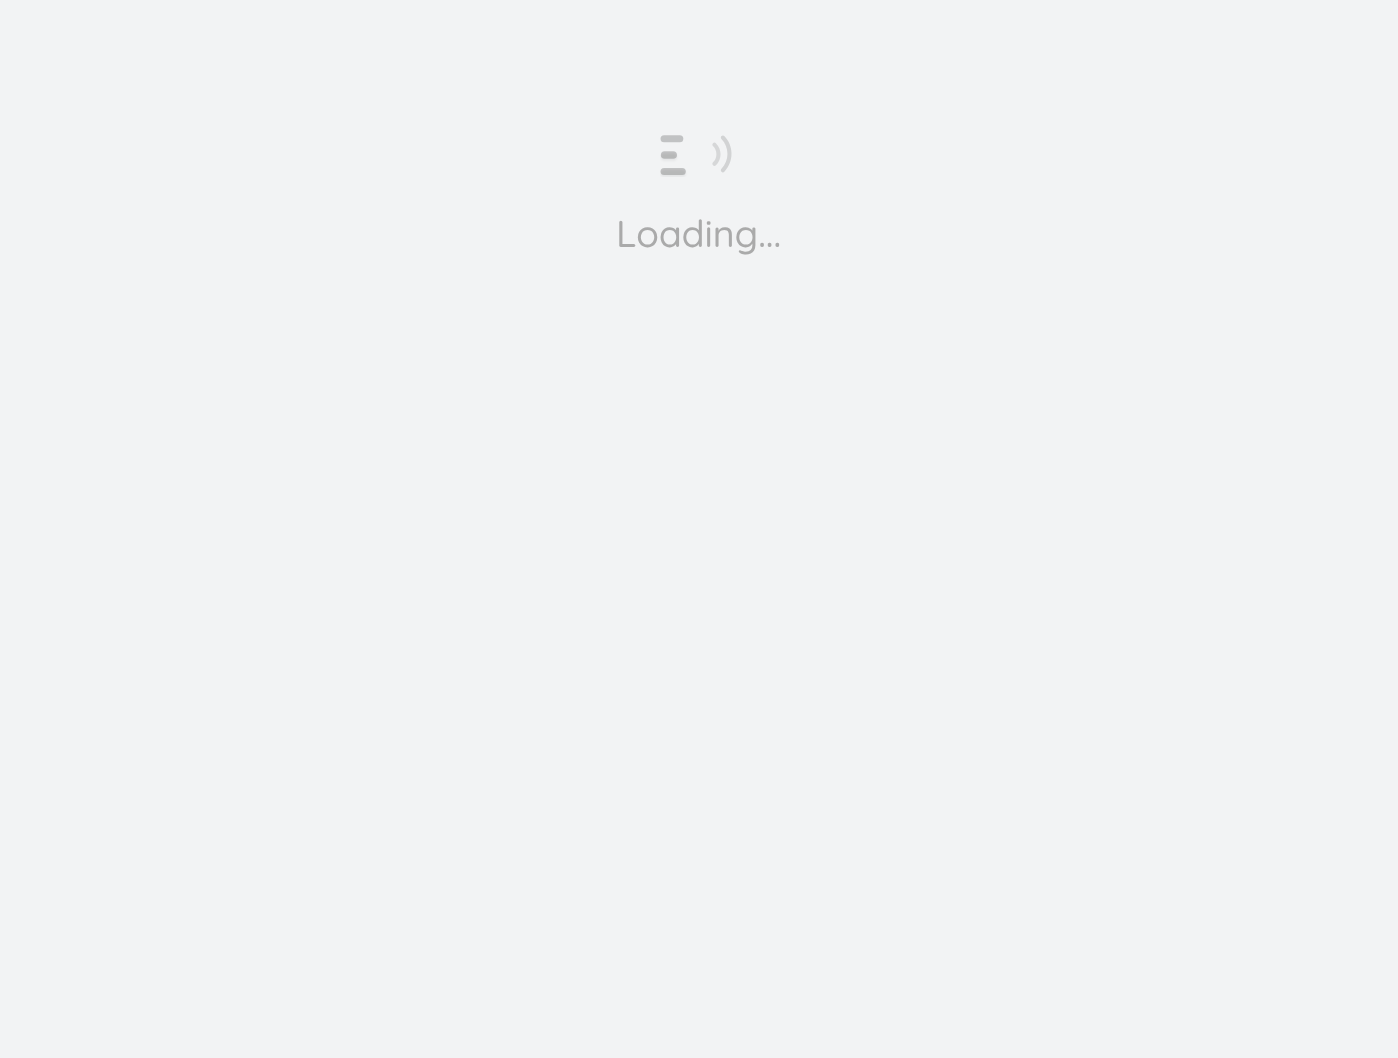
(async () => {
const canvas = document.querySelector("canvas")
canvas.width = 1398
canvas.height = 1058
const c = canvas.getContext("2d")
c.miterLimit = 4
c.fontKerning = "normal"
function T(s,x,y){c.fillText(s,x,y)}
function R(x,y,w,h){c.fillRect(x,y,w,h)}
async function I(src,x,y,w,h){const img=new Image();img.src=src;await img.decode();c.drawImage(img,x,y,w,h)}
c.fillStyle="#f2f3f4"
R(0,0,1398,1058)
await I("1.png",660,135,72,42)
c.font="500 37.5px Quicksand"
c.fillStyle="#aaa"
T("Loading...",616,247)
})()
